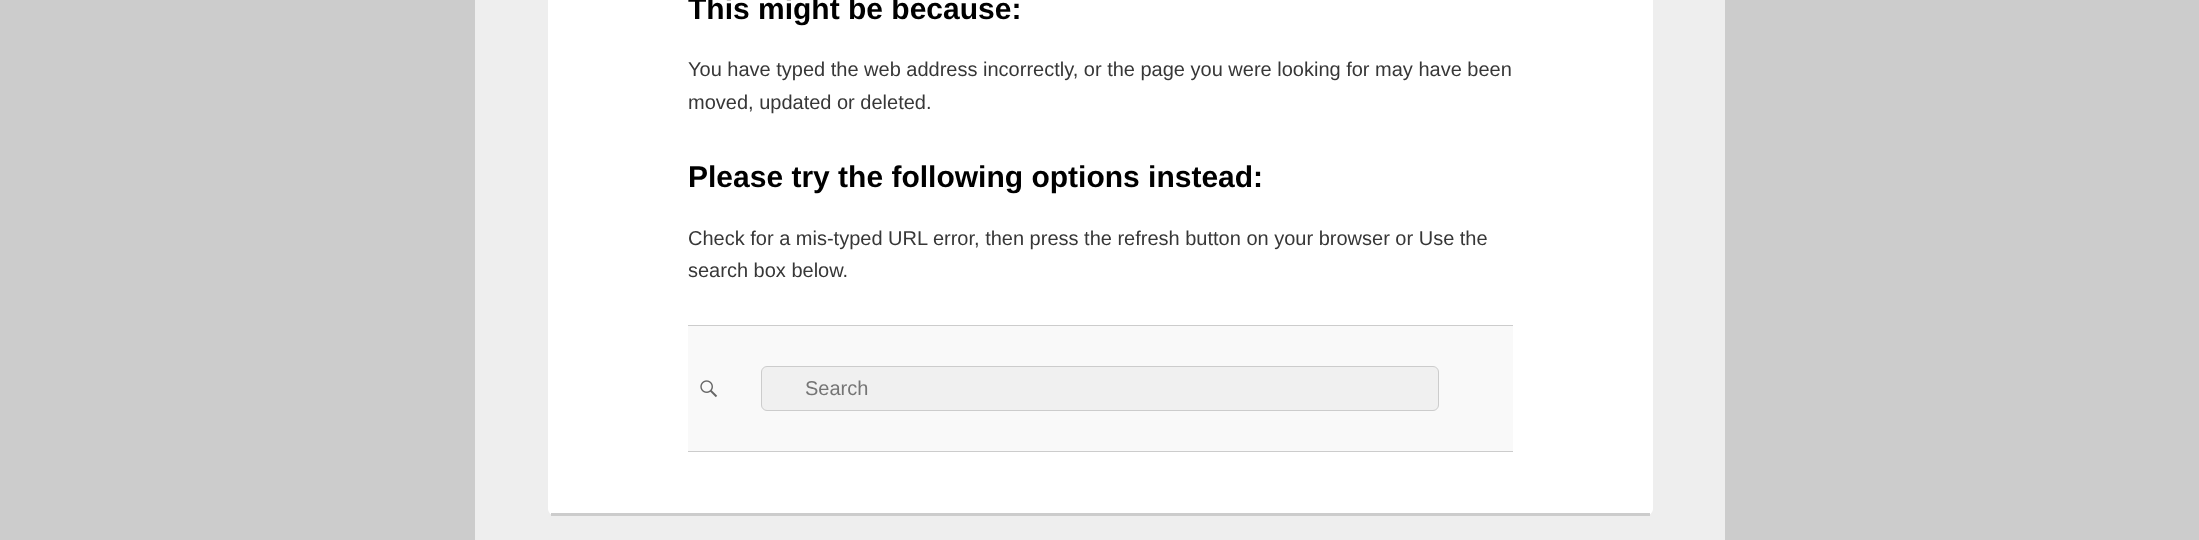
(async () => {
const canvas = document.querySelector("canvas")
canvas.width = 2199
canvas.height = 540
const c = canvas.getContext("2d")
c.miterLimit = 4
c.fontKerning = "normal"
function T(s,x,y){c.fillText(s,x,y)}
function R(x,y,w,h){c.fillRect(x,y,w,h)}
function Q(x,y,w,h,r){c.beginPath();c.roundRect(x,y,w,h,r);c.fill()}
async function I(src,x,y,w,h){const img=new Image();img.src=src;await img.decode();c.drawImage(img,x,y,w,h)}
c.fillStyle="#ccc"
R(0,0,2199,540)
c.fillStyle="#eee"
R(475,0,1250,540)
c.fillStyle="#fff"
Q(548,-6,1105,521,6)
c.fillStyle="#ccc"
R(551,513,1099,3)
c.font="bold 30px Liberation Sans"
c.fillStyle="#000"
T("This might be because:",688,19)
c.font="20px Liberation Sans"
c.fillStyle="#373737"
T("You have typed the web address incorrectly, or the page you were looking for may have been",688,76)
T("moved, updated or deleted.",688,109)
c.font="bold 30px Liberation Sans"
c.fillStyle="#000"
T("Please try the following options instead:",688,187)
c.font="20px Liberation Sans"
c.fillStyle="#373737"
T("Check for a mis-typed URL error, then press the refresh button on your browser or Use the",688,245)
T("search box below.",688,277)
c.fillStyle="#f9f9f9"
R(688,326,825,125)
c.fillStyle="#ccc"
R(688,325,825,1)
R(688,451,825,1)
await I("1.png",700,380,18,18)
c.fillStyle="#f0f0f0"
c.beginPath()
c.roundRect(761.5,366.5,677,44,5.5)
c.fill()
c.strokeStyle="#ccc"
c.stroke()
c.fillStyle="#757575"
T("Search",805,395)
})()
